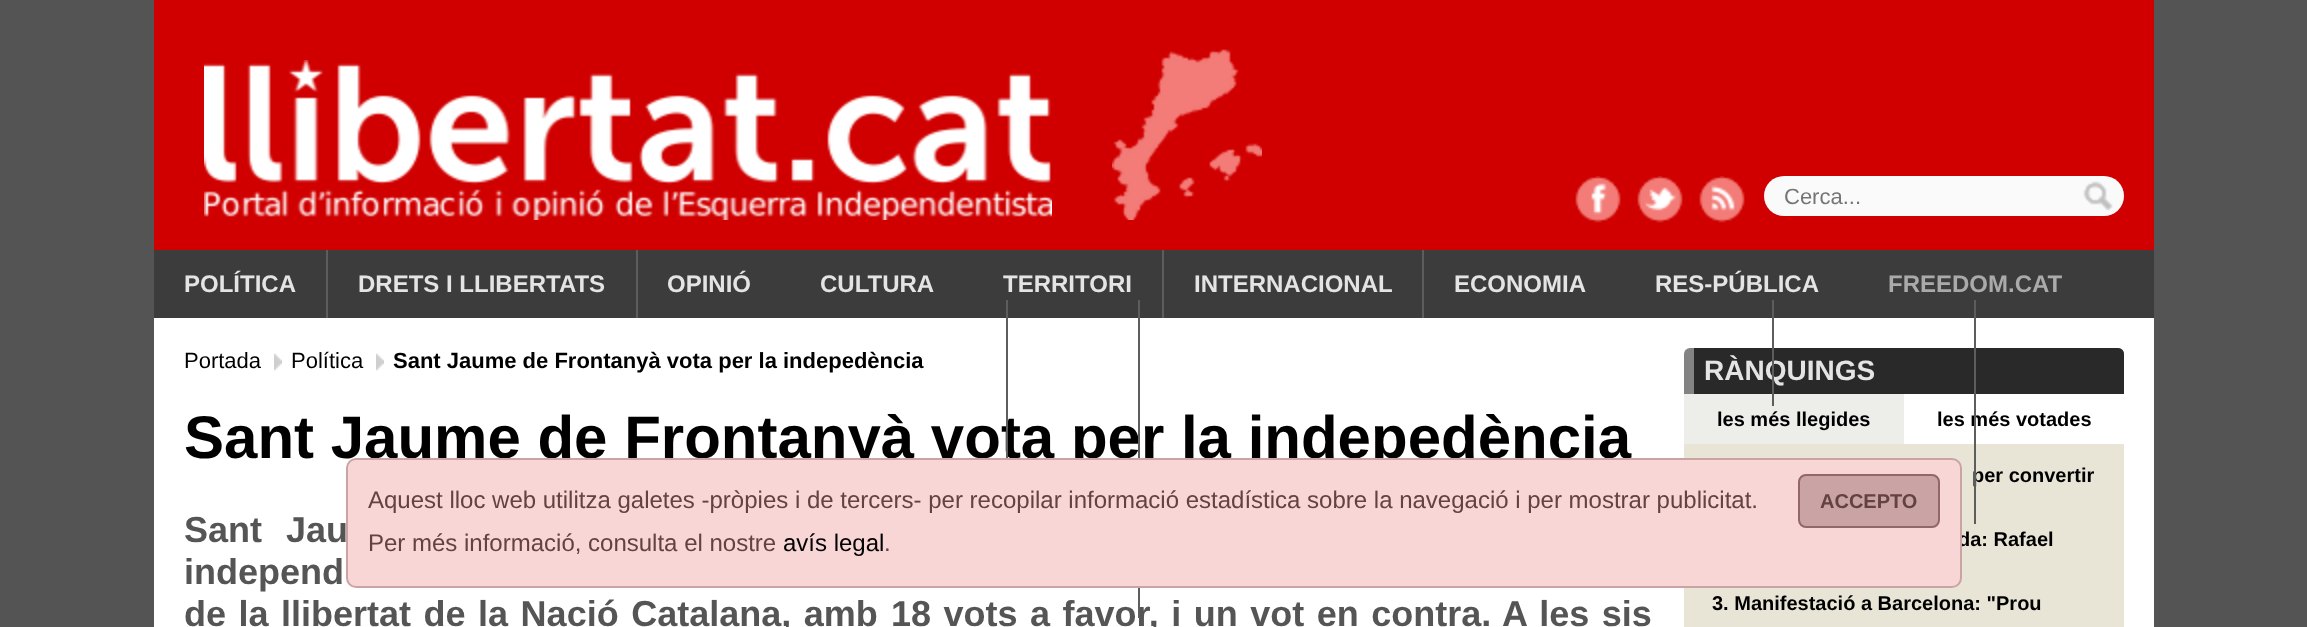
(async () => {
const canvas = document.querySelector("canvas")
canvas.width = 2307
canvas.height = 627
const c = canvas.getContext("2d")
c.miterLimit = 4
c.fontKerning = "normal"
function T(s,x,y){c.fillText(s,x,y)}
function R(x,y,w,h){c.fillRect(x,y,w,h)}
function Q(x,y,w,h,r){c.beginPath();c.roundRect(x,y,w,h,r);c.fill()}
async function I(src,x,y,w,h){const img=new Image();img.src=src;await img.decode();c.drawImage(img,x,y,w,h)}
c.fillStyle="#545454"
R(0,0,2307,627)
c.fillStyle="#d00000"
R(154,0,2000,250)
await I("1.png",1112,49,150,171)
await I("2.png",204,60,848,160)
await I("3.png",1575,176,46,47)
await I("4.png",1637,176,46,47)
await I("5.png",1699,176,46,47)
c.fillStyle="#fafafa"
Q(1764,176,360,40,20)
await I("6.png",2083,181,30,30)
c.font="22px Liberation Sans"
c.fillStyle="#757575"
T("Cerca...",1784,204)
c.fillStyle="#3c3c3c"
R(154,250,2000,68)
c.font="bold 24px Liberation Sans"
c.fillStyle="#e4e4e4"
T("POLÍTICA",184,292)
c.fillStyle="#5d5d5d"
R(326,250,2,68)
c.fillStyle="#e4e4e4"
T("DRETS I LLIBERTATS",358,292)
c.fillStyle="#5d5d5d"
R(636,250,2,68)
c.fillStyle="#e4e4e4"
T("OPINIÓ",667,292)
c.fillStyle="#fff"
R(154,318,2000,309)
c.font="bold 60px Liberation Sans"
c.fillStyle="#000"
T("Sant Jaume de Frontanyà vota per la indepedència",184,458)
c.fillStyle="#5d5d5d"
R(1006,300,2,158)
c.font="bold 24px Liberation Sans"
c.fillStyle="#e4e4e4"
T("CULTURA",820,292)
c.wordSpacing="2.5px"
c.font="bold 36px Liberation Sans"
c.fillStyle="#555"
T("18 vots a favor, i un vot en contra.",891,626)
c.fillStyle="#5d5d5d"
R(1138,300,2,318)
c.wordSpacing="0px"
c.font="bold 24px Liberation Sans"
c.fillStyle="#e4e4e4"
T("TERRITORI",1003,292)
c.fillStyle="#5d5d5d"
R(1162,250,2,68)
c.fillStyle="#e4e4e4"
T("INTERNACIONAL",1194,292)
c.fillStyle="#5d5d5d"
R(1422,250,2,68)
c.fillStyle="#e4e4e4"
T("ECONOMIA",1454,292)
c.fillStyle="#838383"
c.beginPath()
c.roundRect(1684,348,440,46,[6,6,0,0])
c.fill()
c.fillStyle="#292929"
c.beginPath()
c.roundRect(1694,348,430,46,[0,6,0,0])
c.fill()
c.font="bold 28px Liberation Sans"
c.fillStyle="#e4e4e4"
T("RÀNQUINGS",1704,380)
c.fillStyle="#ededea"
R(1684,394,220,50)
c.fillStyle="#5d5d5d"
R(1772,300,2,106)
c.font="bold 24px Liberation Sans"
c.fillStyle="#e4e4e4"
T("RES-PÚBLICA",1655,292)
c.font="bold 20px Liberation Sans"
c.fillStyle="#000"
T("les més votades",1937,426)
c.fillStyle="#e8e5d7"
R(1684,444,440,183)
c.fillStyle="#000"
T("per convertir",1972,482)
c.fillStyle="#5d5d5d"
R(1974,300,2,224)
c.font="bold 24px Liberation Sans"
c.fillStyle="#aaa"
T("FREEDOM.CAT",1888,292)
c.font="bold 20px Liberation Sans"
c.fillStyle="#000"
T("da: Rafael",1958,546)
c.fillStyle="#f8d6d6"
c.beginPath()
c.roundRect(347,459,1614,128,9)
c.fill()
c.strokeStyle="#caa4a4"
c.lineWidth=2
c.stroke()
c.font="24px Liberation Sans"
c.fillStyle="#644242"
T("Aquest lloc web utilitza galetes -pròpies i de tercers- per recopilar informació estadística sobre la navegació i per mostrar publicitat.",368,508)
c.fillStyle="#caa4a4"
c.beginPath()
c.roundRect(1799,475,140,52,7)
c.fill()
c.strokeStyle="#916767"
c.stroke()
c.font="bold 20px Liberation Sans"
c.fillStyle="#644242"
T("ACCEPTO",1820,508)
c.font="24px Liberation Sans"
T("Per més informació, consulta el nostre",368,551)
c.fillStyle="#000"
T("avís legal",783,551)
c.fillStyle="#644242"
T(".",884,551)
c.font="22px Liberation Sans"
c.fillStyle="#000"
T("Portada",184,368)
await I("7.png",274,353,8,18)
T("Política",291,368)
await I("7.png",376,353,8,18)
c.font="bold 22px Liberation Sans"
T("Sant Jaume de Frontanyà vota per la indepedència",393,368)
c.wordSpacing="14px"
c.font="bold 36px Liberation Sans"
c.fillStyle="#555"
T("Sant Jau",184,542)
c.wordSpacing="0px"
T("independ",184,584)
c.wordSpacing="2.5px"
T("de la llibertat de la Nació Catalana, amb",184,626)
T("A les sis",1502,626)
c.wordSpacing="0px"
c.font="bold 20px Liberation Sans"
c.fillStyle="#000"
T("les més llegides",1717,426)
T("3. Manifestació a Barcelona: \"Prou",1712,610)
})()
